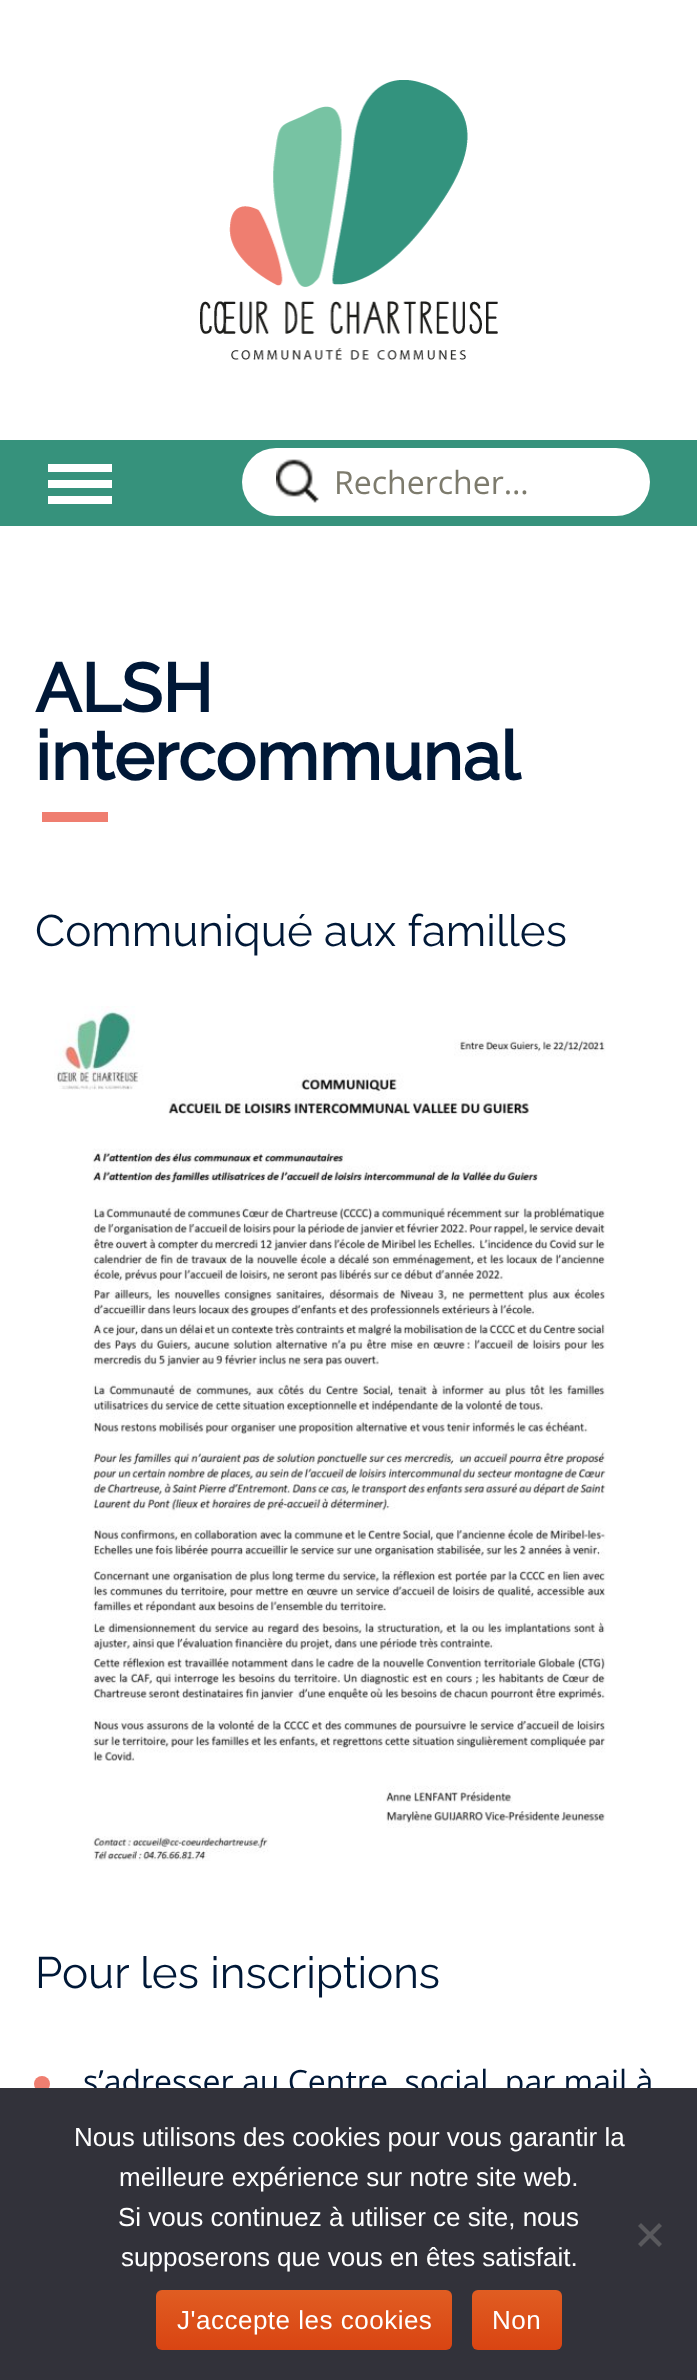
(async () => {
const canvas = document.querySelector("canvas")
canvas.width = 697
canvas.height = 2380
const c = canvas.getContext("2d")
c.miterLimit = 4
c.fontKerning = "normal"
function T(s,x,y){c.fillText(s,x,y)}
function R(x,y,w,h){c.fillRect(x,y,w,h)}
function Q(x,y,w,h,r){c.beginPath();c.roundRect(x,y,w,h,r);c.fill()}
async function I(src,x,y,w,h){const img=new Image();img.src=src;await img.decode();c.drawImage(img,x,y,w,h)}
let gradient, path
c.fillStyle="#fff"
R(0,0,697,2380)
await I("1.png",200,80,298,280)
c.fillStyle="#36927c"
R(0,440,697,86)
c.fillStyle="#fff"
path = new Path2D("M48 504h64v-8h-64zm0-32h64v-8h-64zm0 16h64v-8h-64z")
c.fill(path,"evenodd")
Q(242,448,408,68,34)
await I("2.png",276,459,43,44)
c.font="32px Open Sans"
c.fillStyle="#7d7b6d"
T("Rechercher…",334,494)
c.font="bold 68px Raleway"
c.fillStyle="#001837"
T("ALSH",35,712)
T("intercommunal",35,780)
c.fillStyle="#ef7e70"
R(42,812,66,10)
c.font="44px Raleway"
c.fillStyle="#001837"
T("Communiqué aux familles",35,946)
await I("3.png",54,1006,552,855)
T("Pour les inscriptions",35,1988)
c.fillStyle="#ef7e70"
c.beginPath()
c.arc(42,2084,8,0,7)
c.fill()
c.font="32px Open Sans"
c.fillStyle="#001837"
T("s’adresser au Centre  social, par mail à",83,2093)
c.fillStyle="#32323a"
R(0,2088,697,292)
c.font="26px Liberation Sans"
c.fillStyle="#fff"
T("Nous utilisons des cookies pour vous garantir la",74,2146)
T("meilleure expérience sur notre site web.",119,2186)
T("Si vous continuez à utiliser ce site, nous",118,2226)
T("supposerons que vous en êtes satisfait.",121,2266)
c.fillStyle="#59595d"
path = new Path2D("M659 2223l3 3l-21 21l-3-3z")
c.fill(path)
path = new Path2D("M638 2226l3-3l21 21l-3 3z")
c.fill(path)
gradient = c.createLinearGradient(304,2290,304,2350)
gradient.addColorStop(0,"#e05d22")
gradient.addColorStop(1,"#d94412")
c.fillStyle = gradient
Q(156,2290,296,60,6)
c.letterSpacing="0.5px"
c.fillStyle="#fff"
T("J'accepte les cookies",177,2329)
gradient = c.createLinearGradient(517,2290,517,2350)
gradient.addColorStop(0,"#e05d22")
gradient.addColorStop(1,"#d94412")
c.fillStyle = gradient
Q(472,2290,90,60,6)
c.fillStyle="#fff"
T("Non",492,2329)
})()
